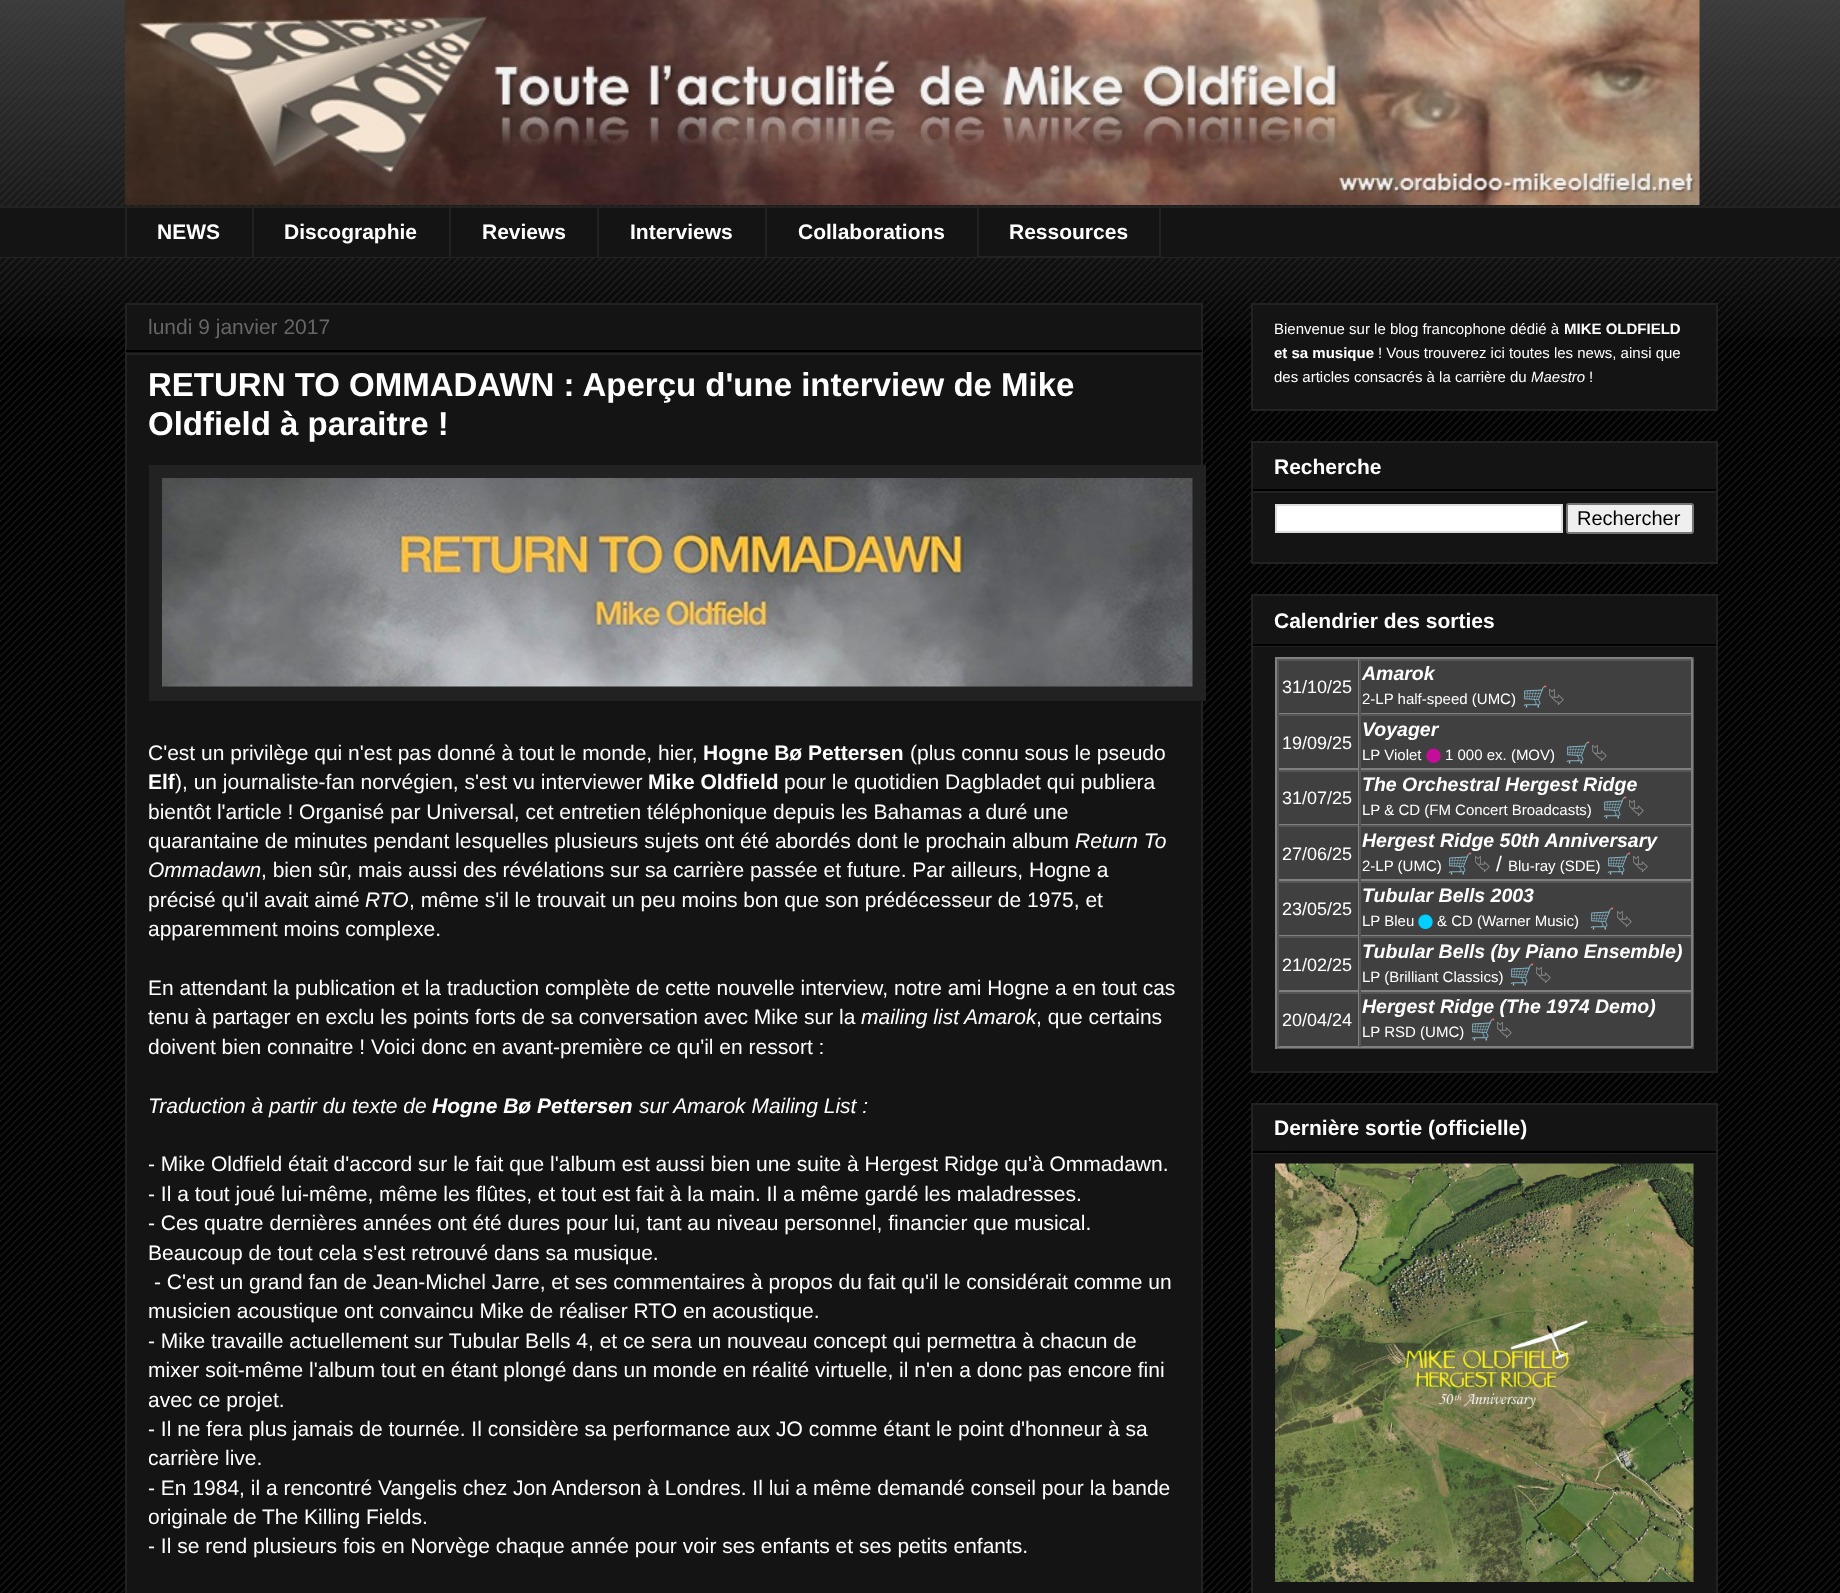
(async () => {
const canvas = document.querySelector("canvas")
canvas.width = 1840
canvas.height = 1593
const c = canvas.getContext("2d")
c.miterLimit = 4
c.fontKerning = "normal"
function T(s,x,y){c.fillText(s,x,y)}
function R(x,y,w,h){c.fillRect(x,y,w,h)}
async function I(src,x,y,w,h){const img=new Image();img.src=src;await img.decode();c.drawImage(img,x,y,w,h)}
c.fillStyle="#000"
R(0,0,1840,1593)
await I("1.png",0,0,1840,1593)
await I("2.png",0,0,1840,337)
await I("3.png",124,0,1576,205)
c.fillStyle="#141414"
R(0,208,1840,49)
c.fillStyle="#222"
R(0,206,1840,2)
R(125,206,2,52)
c.font="bold 21px Liberation Sans"
c.fillStyle="#fff"
T("NEWS",157,239)
c.fillStyle="#222"
R(252,206,2,52)
c.fillStyle="#fff"
T("Discographie",284,239)
c.fillStyle="#222"
R(449,206,2,52)
c.fillStyle="#fff"
T("Reviews",482,239)
c.fillStyle="#222"
R(597,206,2,52)
c.fillStyle="#fff"
T("Interviews",630,239)
c.fillStyle="#222"
R(765,206,2,52)
c.fillStyle="#fff"
T("Collaborations",798,239)
c.strokeStyle="#222"
c.lineWidth=2
c.strokeRect(978,207,182,50)
T("Ressources",1009,239)
c.fillStyle="#222"
R(0,257,1840,1)
c.fillStyle="#141414"
c.beginPath()
c.rect(126,304,1076,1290)
c.fill()
c.stroke()
c.fillStyle="#000"
R(126,350,1076,2)
c.font="21px Liberation Sans"
c.fillStyle="#666"
T("lundi 9 janvier 2017",148,334)
c.fillStyle="#222"
R(126,353,1076,2)
c.font="bold 33px Liberation Sans"
c.fillStyle="#fff"
T("RETURN TO OMMADAWN : Aperçu d'une interview de Mike",148,396)
T("Oldfield à paraitre !",148,435)
c.fillStyle="#222"
R(149,465,1057,236)
await I("4.png",162,478,1031,209)
c.font="21px Liberation Sans"
c.fillStyle="#fff"
T("C'est un privilège qui n'est pas donné à tout le monde, hier,",148,760)
c.font="bold 21px Liberation Sans"
T("Hogne Bø Pettersen",703,760)
c.font="21px Liberation Sans"
T("(plus connu sous le pseudo",910,760)
c.font="bold 21px Liberation Sans"
T("Elf",148,789)
c.font="21px Liberation Sans"
T("), un journaliste-fan norvégien, s'est vu interviewer",175,789)
c.font="bold 21px Liberation Sans"
T("Mike Oldfield",648,789)
c.font="21px Liberation Sans"
T("pour le quotidien Dagbladet qui publiera",784,789)
T("bientôt l'article ! Organisé par Universal, cet entretien téléphonique depuis les Bahamas a duré une",148,819)
T("quarantaine de minutes pendant lesquelles plusieurs sujets ont été abordés dont le prochain album",148,848)
c.font="italic 21px Liberation Sans"
T("Return To",1075,848)
T("Ommadawn",148,877)
c.font="21px Liberation Sans"
T(", bien sûr, mais aussi des révélations sur sa carrière passée et future. Par ailleurs, Hogne a",261,877)
T("précisé qu'il avait aimé",148,907)
c.font="italic 21px Liberation Sans"
T("RTO",365,907)
c.font="21px Liberation Sans"
T(", même s'il le trouvait un peu moins bon que son prédécesseur de 1975, et",409,907)
T("apparemment moins complexe.",148,936)
T("En attendant la publication et la traduction complète de cette nouvelle interview, notre ami Hogne a en tout cas",148,995)
T("tenu à partager en exclu les points forts de sa conversation avec Mike sur la",148,1024)
c.font="italic 21px Liberation Sans"
T("mailing list Amarok",861,1024)
c.font="21px Liberation Sans"
T(", que certains",1036,1024)
T("doivent bien connaitre ! Voici donc en avant-première ce qu'il en ressort :",148,1054)
c.font="italic 21px Liberation Sans"
T("Traduction à partir du texte de",148,1113)
c.font="italic bold 21px Liberation Sans"
T("Hogne Bø Pettersen",432,1113)
c.font="italic 21px Liberation Sans"
T("sur Amarok Mailing List :",639,1113)
c.font="21px Liberation Sans"
T("- Mike Oldfield était d'accord sur le fait que l'album est aussi bien une suite à Hergest Ridge qu'à Ommadawn.",148,1171)
T("- Il a tout joué lui-même, même les flûtes, et tout est fait à la main. Il a même gardé les maladresses.",148,1201)
T("- Ces quatre dernières années ont été dures pour lui, tant au niveau personnel, financier que musical.",148,1230)
T("Beaucoup de tout cela s'est retrouvé dans sa musique.",148,1260)
T("- C'est un grand fan de Jean-Michel Jarre, et ses commentaires à propos du fait qu'il le considérait comme un",154,1289)
T("musicien acoustique ont convaincu Mike de réaliser RTO en acoustique.",148,1318)
T("- Mike travaille actuellement sur Tubular Bells 4, et ce sera un nouveau concept qui permettra à chacun de",148,1348)
T("mixer soit-même l'album tout en étant plongé dans un monde en réalité virtuelle, il n'en a donc pas encore fini",148,1377)
T("avec ce projet.",148,1407)
T("- Il ne fera plus jamais de tournée. Il considère sa performance aux JO comme étant le point d'honneur à sa",148,1436)
T("carrière live.",148,1465)
T("- En 1984, il a rencontré Vangelis chez Jon Anderson à Londres. Il lui a même demandé conseil pour la bande",148,1495)
T("originale de The Killing Fields.",148,1524)
T("- Il se rend plusieurs fois en Norvège chaque année pour voir ses enfants et ses petits enfants.",148,1553)
c.fillStyle="#141414"
c.beginPath()
c.rect(1252,304,465,106)
c.fill()
c.stroke()
c.font="15px Liberation Sans"
c.fillStyle="#fff"
T("Bienvenue sur le blog francophone dédié à",1274,334)
c.font="bold 15px Liberation Sans"
T("MIKE OLDFIELD",1564,334)
T("et sa musique",1274,358)
c.font="15px Liberation Sans"
T("! Vous trouverez ici toutes les news, ainsi que",1378,358)
T("des articles consacrés à la carrière du",1274,382)
c.font="italic 15px Liberation Sans"
T("Maestro",1531,382)
c.font="15px Liberation Sans"
T("!",1589,382)
c.fillStyle="#141414"
c.beginPath()
c.rect(1252,442,465,121)
c.fill()
c.stroke()
c.fillStyle="#000"
R(1253,489,463,2)
c.font="bold 21px Liberation Sans"
c.fillStyle="#fff"
T("Recherche",1274,474)
c.fillStyle="#222"
R(1253,491,463,2)
c.fillStyle="#fff"
c.beginPath()
c.rect(1276,505,286,27)
c.fill()
c.strokeStyle="#ddd"
c.stroke()
c.fillStyle="#efefef"
c.beginPath()
c.roundRect(1567,504,126,29,2)
c.fill()
c.strokeStyle="#767676"
c.stroke()
c.font="20px Liberation Sans"
c.fillStyle="#000"
T("Rechercher",1577,525)
c.fillStyle="#141414"
c.beginPath()
c.rect(1252,595,465,477)
c.fill()
c.strokeStyle="#222"
c.stroke()
c.fillStyle="#000"
R(1253,644,463,2)
c.font="bold 21px Liberation Sans"
c.fillStyle="#fff"
T("Calendrier des sorties",1274,628)
c.fillStyle="#222"
R(1253,646,463,1)
c.fillStyle="#404040"
R(1279,661,412,385)
c.fillStyle="#808080"
R(1275,657,419,2)
c.fillStyle="#555"
R(1692,657,2,392)
R(1275,1047,419,2)
c.fillStyle="#808080"
R(1275,657,2,392)
c.fillStyle="#555"
R(1277,659,415,2)
c.fillStyle="#808080"
R(1358,659,1,55)
R(1277,713,82,1)
c.fillStyle="#555"
R(1277,659,2,55)
c.font="18px Liberation Sans"
c.fillStyle="#fff"
T("31/10/25",1282,693)
c.fillStyle="#808080"
R(1691,659,2,55)
R(1359,713,333,1)
c.fillStyle="#555"
R(1359,659,2,55)
c.font="italic bold 19.5px Liberation Sans"
c.fillStyle="#fff"
T("Amarok",1362,680)
c.font="15px Liberation Sans"
T("2-LP half-speed (UMC)",1362,704)
c.font="21px Noto Color Emoji"
c.fillStyle="#888"
T("🛒",1522,704)
c.font="21px FreeSerif"
T("⮱",1548,704)
c.fillStyle="#555"
R(1277,714,415,2)
c.fillStyle="#808080"
R(1358,714,1,56)
R(1277,768,82,2)
c.fillStyle="#555"
R(1277,714,2,56)
c.font="18px Liberation Sans"
c.fillStyle="#fff"
T("19/09/25",1282,749)
c.fillStyle="#808080"
R(1691,714,2,56)
R(1359,768,333,2)
c.fillStyle="#555"
R(1359,714,2,56)
c.font="italic bold 19.5px Liberation Sans"
c.fillStyle="#fff"
T("Voyager",1362,736)
c.font="15px Liberation Sans"
T("LP Violet",1362,760)
c.font="15px FreeSans"
c.fillStyle="#c40e99"
T("⬤",1426,760)
c.font="15px Liberation Sans"
c.fillStyle="#fff"
T("1 000 ex. (MOV)",1445,760)
c.font="21px Noto Color Emoji"
c.fillStyle="#888"
T("🛒",1565,760)
c.font="21px FreeSerif"
T("⮱",1591,760)
c.fillStyle="#555"
R(1277,770,415,2)
c.fillStyle="#808080"
R(1358,770,1,55)
R(1277,824,82,1)
c.fillStyle="#555"
R(1277,770,2,55)
c.font="18px Liberation Sans"
c.fillStyle="#fff"
T("31/07/25",1282,804)
c.fillStyle="#808080"
R(1691,770,2,55)
R(1359,824,333,1)
c.fillStyle="#555"
R(1359,770,2,55)
c.font="italic bold 19.5px Liberation Sans"
c.fillStyle="#fff"
T("The Orchestral Hergest Ridge",1362,791)
c.font="15px Liberation Sans"
T("LP & CD (FM Concert Broadcasts)",1362,815)
c.font="21px Noto Color Emoji"
c.fillStyle="#888"
T("🛒",1602,815)
c.font="21px FreeSerif"
T("⮱",1628,815)
c.fillStyle="#555"
R(1277,825,415,2)
c.fillStyle="#808080"
R(1358,825,1,56)
R(1277,879,82,2)
c.fillStyle="#555"
R(1277,825,2,56)
c.font="18px Liberation Sans"
c.fillStyle="#fff"
T("27/06/25",1282,860)
c.fillStyle="#808080"
R(1691,825,2,56)
R(1359,879,333,2)
c.fillStyle="#555"
R(1359,825,2,56)
c.font="italic bold 19.5px Liberation Sans"
c.fillStyle="#fff"
T("Hergest Ridge 50th Anniversary",1362,847)
c.font="15px Liberation Sans"
T("2-LP (UMC)",1362,871)
c.font="21px Noto Color Emoji"
c.fillStyle="#888"
T("🛒",1447,871)
c.font="21px FreeSerif"
T("⮱",1474,871)
c.font="21px Liberation Sans"
c.fillStyle="#fff"
T("/",1496,871)
c.font="15px Liberation Sans"
T("Blu-ray (SDE)",1508,871)
c.font="21px Noto Color Emoji"
c.fillStyle="#888"
T("🛒",1606,871)
c.font="21px FreeSerif"
T("⮱",1632,871)
c.fillStyle="#555"
R(1277,881,415,2)
c.fillStyle="#808080"
R(1358,881,1,55)
R(1277,935,82,1)
c.fillStyle="#555"
R(1277,881,2,55)
c.font="18px Liberation Sans"
c.fillStyle="#fff"
T("23/05/25",1282,915)
c.fillStyle="#808080"
R(1691,881,2,55)
R(1359,935,333,1)
c.fillStyle="#555"
R(1359,881,2,55)
c.font="italic bold 19.5px Liberation Sans"
c.fillStyle="#fff"
T("Tubular Bells 2003",1362,902)
c.font="15px Liberation Sans"
T("LP Bleu",1362,926)
c.font="15px FreeSans"
c.fillStyle="#00d0ff"
T("⬤",1418,926)
c.font="15px Liberation Sans"
c.fillStyle="#fff"
T("& CD (Warner Music)",1437,926)
c.font="21px Noto Color Emoji"
c.fillStyle="#888"
T("🛒",1589,926)
c.font="21px FreeSerif"
T("⮱",1616,926)
c.fillStyle="#555"
R(1277,936,415,2)
c.fillStyle="#808080"
R(1358,936,1,56)
R(1277,990,82,2)
c.fillStyle="#555"
R(1277,936,2,56)
c.font="18px Liberation Sans"
c.fillStyle="#fff"
T("21/02/25",1282,971)
c.fillStyle="#808080"
R(1691,936,2,56)
R(1359,990,333,2)
c.fillStyle="#555"
R(1359,936,2,56)
c.font="italic bold 19.5px Liberation Sans"
c.fillStyle="#fff"
T("Tubular Bells (by Piano Ensemble)",1362,958)
c.font="15px Liberation Sans"
T("LP (Brilliant Classics)",1362,982)
c.font="21px Noto Color Emoji"
c.fillStyle="#888"
T("🛒",1509,982)
c.font="21px FreeSerif"
T("⮱",1535,982)
c.fillStyle="#555"
R(1277,992,415,2)
c.fillStyle="#808080"
R(1358,992,1,55)
R(1277,1046,82,2)
c.fillStyle="#555"
R(1277,992,2,55)
c.font="18px Liberation Sans"
c.fillStyle="#fff"
T("20/04/24",1282,1026)
c.fillStyle="#808080"
R(1691,992,2,55)
R(1359,1046,333,2)
c.fillStyle="#555"
R(1359,992,2,55)
c.font="italic bold 19.5px Liberation Sans"
c.fillStyle="#fff"
T("Hergest Ridge (The 1974 Demo)",1362,1013)
c.font="15px Liberation Sans"
T("LP RSD (UMC)",1362,1037)
c.font="21px Noto Color Emoji"
c.fillStyle="#888"
T("🛒",1470,1037)
c.font="21px FreeSerif"
T("⮱",1496,1037)
c.fillStyle="#141414"
c.beginPath()
c.rect(1252,1104,465,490)
c.fill()
c.stroke()
c.fillStyle="#000"
R(1253,1151,463,2)
c.font="bold 21px Liberation Sans"
c.fillStyle="#fff"
T("Dernière sortie (officielle)",1274,1135)
c.fillStyle="#222"
R(1253,1153,463,1)
await I("5.png",1275,1163,419,419)
})()
